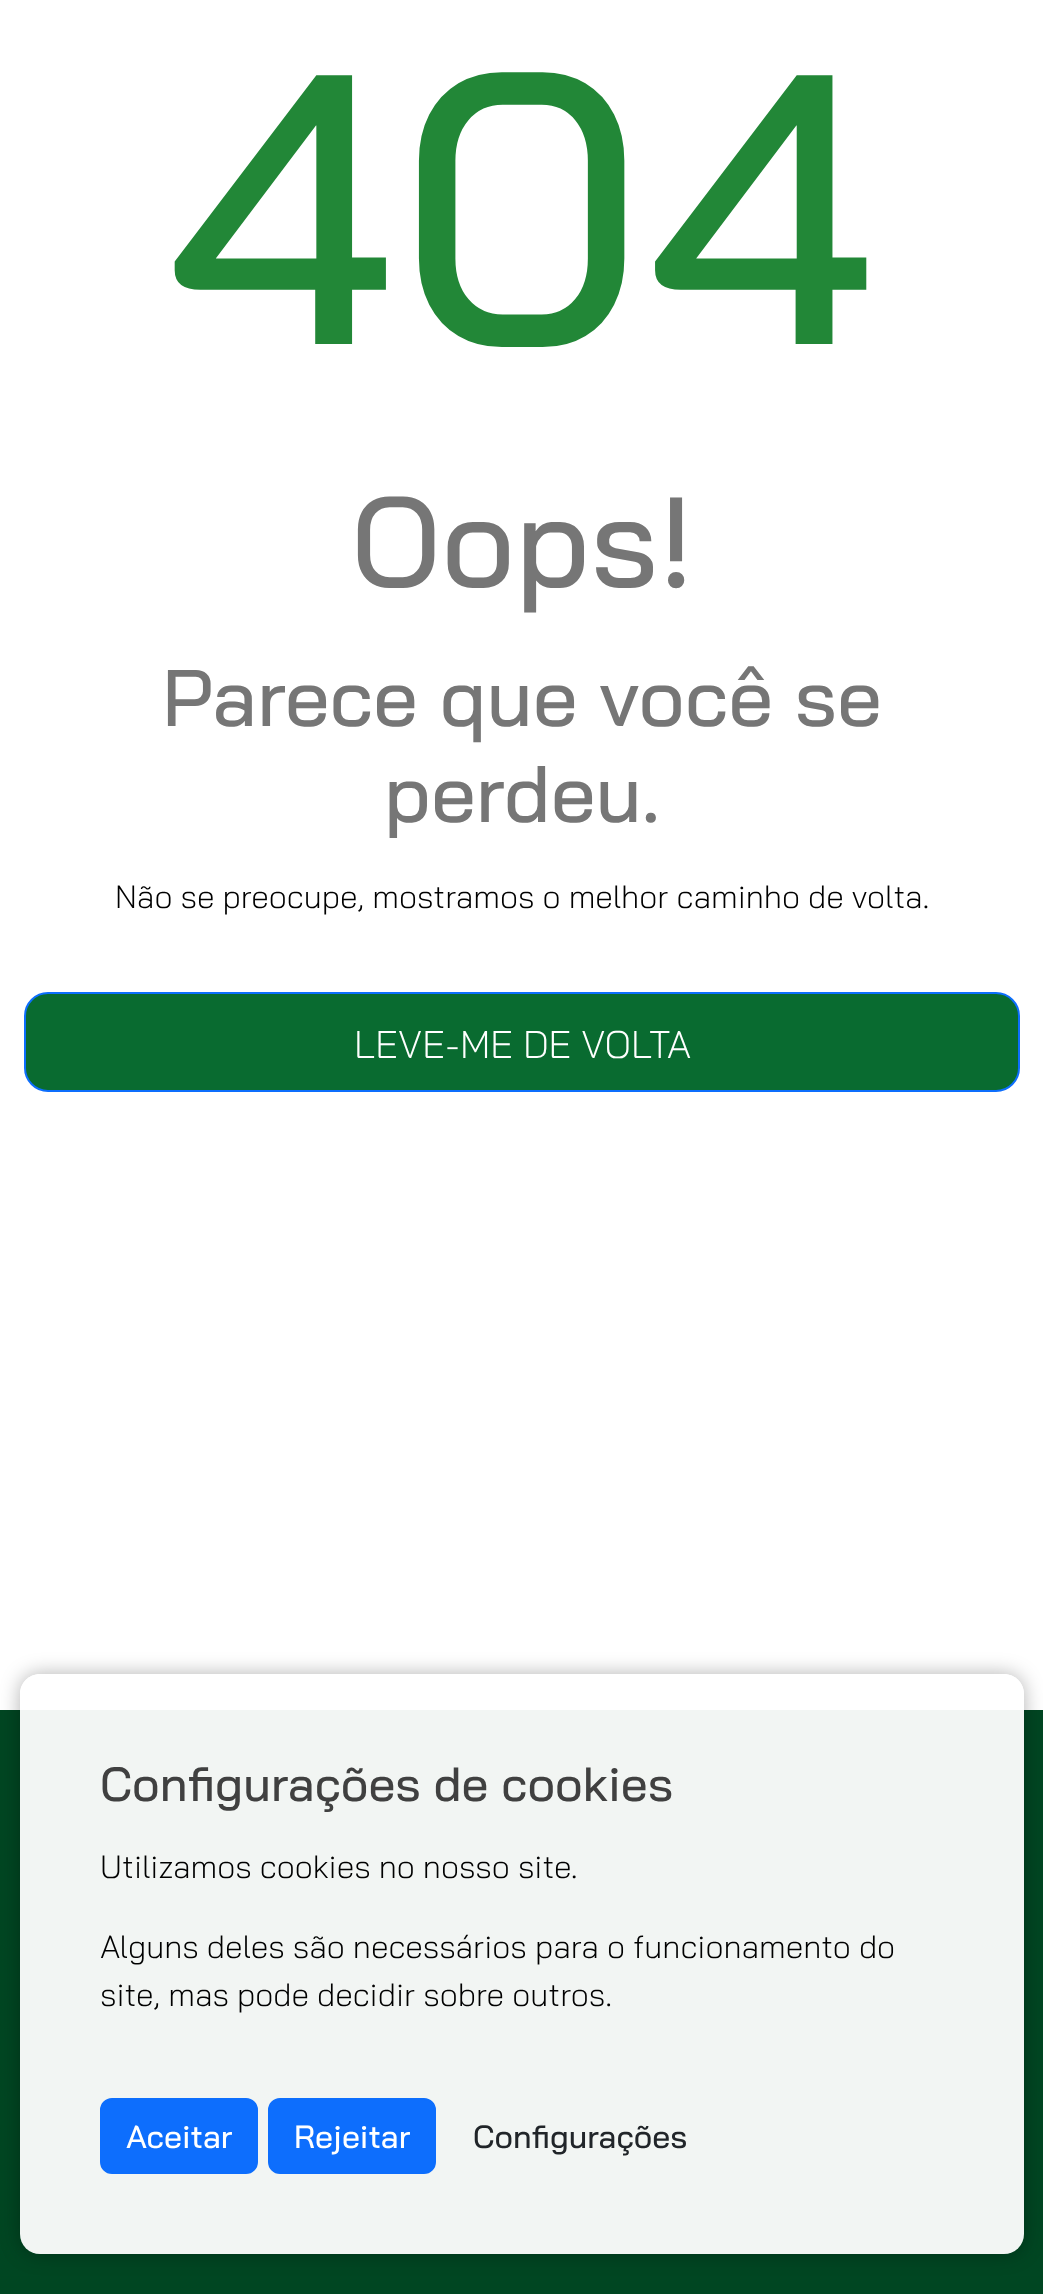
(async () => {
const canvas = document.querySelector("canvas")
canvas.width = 1043
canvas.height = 2294
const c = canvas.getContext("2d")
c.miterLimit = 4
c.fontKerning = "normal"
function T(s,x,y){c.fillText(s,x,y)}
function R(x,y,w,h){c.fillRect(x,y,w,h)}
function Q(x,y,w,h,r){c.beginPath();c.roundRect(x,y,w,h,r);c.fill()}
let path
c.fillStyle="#fff"
R(0,0,1043,2294)
c.font="500 384px Bai Jamjuree"
c.fillStyle="#228737"
T("404",167,344)
c.font="500 128px Bai Jamjuree"
c.fillStyle="#767676"
T("Oops!",351,587)
c.font="500 80px Bai Jamjuree"
T("Parece que você se",162,726)
T("perdeu.",384,822)
c.font="300 32px Bai Jamjuree"
c.fillStyle="#000"
T("Não se preocupe, mostramos o melhor caminho de volta.",115,908)
c.fillStyle="#096b30"
c.beginPath()
c.roundRect(25,993,994,98,23)
c.fill()
c.strokeStyle="#0d6efd"
c.lineWidth=2
c.stroke()
c.font="300 38.5px Bai Jamjuree"
c.fillStyle="#fff"
T("LEVE-ME DE VOLTA",354,1058)
c.fillStyle="#004622"
R(0,1710,1043,584)
c.save()
path = new Path2D("M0 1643h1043v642h-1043zm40 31h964c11 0 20 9 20 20v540c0 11-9 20-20 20h-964c-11 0-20-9-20-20v-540c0-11 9-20 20-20z")
c.clip(path,"evenodd")
c.fillStyle="#0000004d"
c.filter="blur(10px)"
c.beginPath()
c.roundRect(20,1674,1004,580,20)
c.fill()
c.filter="none"
c.restore()
c.fillStyle="#fffffff2"
Q(20,1674,1004,580,20)
c.font="500 47.9px Bai Jamjuree"
c.fillStyle="#404040"
T("Configurações de cookies",100,1801)
c.font="300 32px Bai Jamjuree"
c.fillStyle="#000"
T("Utilizamos cookies no nosso site.",100,1878)
T("Alguns deles são necessários para o funcionamento do",100,1958)
T("site, mas pode decidir sobre outros.",100,2006)
c.fillStyle="#0d6efd"
c.beginPath()
c.roundRect(101,2099,156,74,11)
c.fill()
c.stroke()
c.font="500 32px Bai Jamjuree"
c.fillStyle="#fff"
T("Aceitar",126,2148)
c.fillStyle="#0d6efd"
c.beginPath()
c.roundRect(269,2099,166,74,11)
c.fill()
c.stroke()
c.fillStyle="#fff"
T("Rejeitar",294,2148)
c.fillStyle="#212529"
T("Configurações",473,2148)
})()
